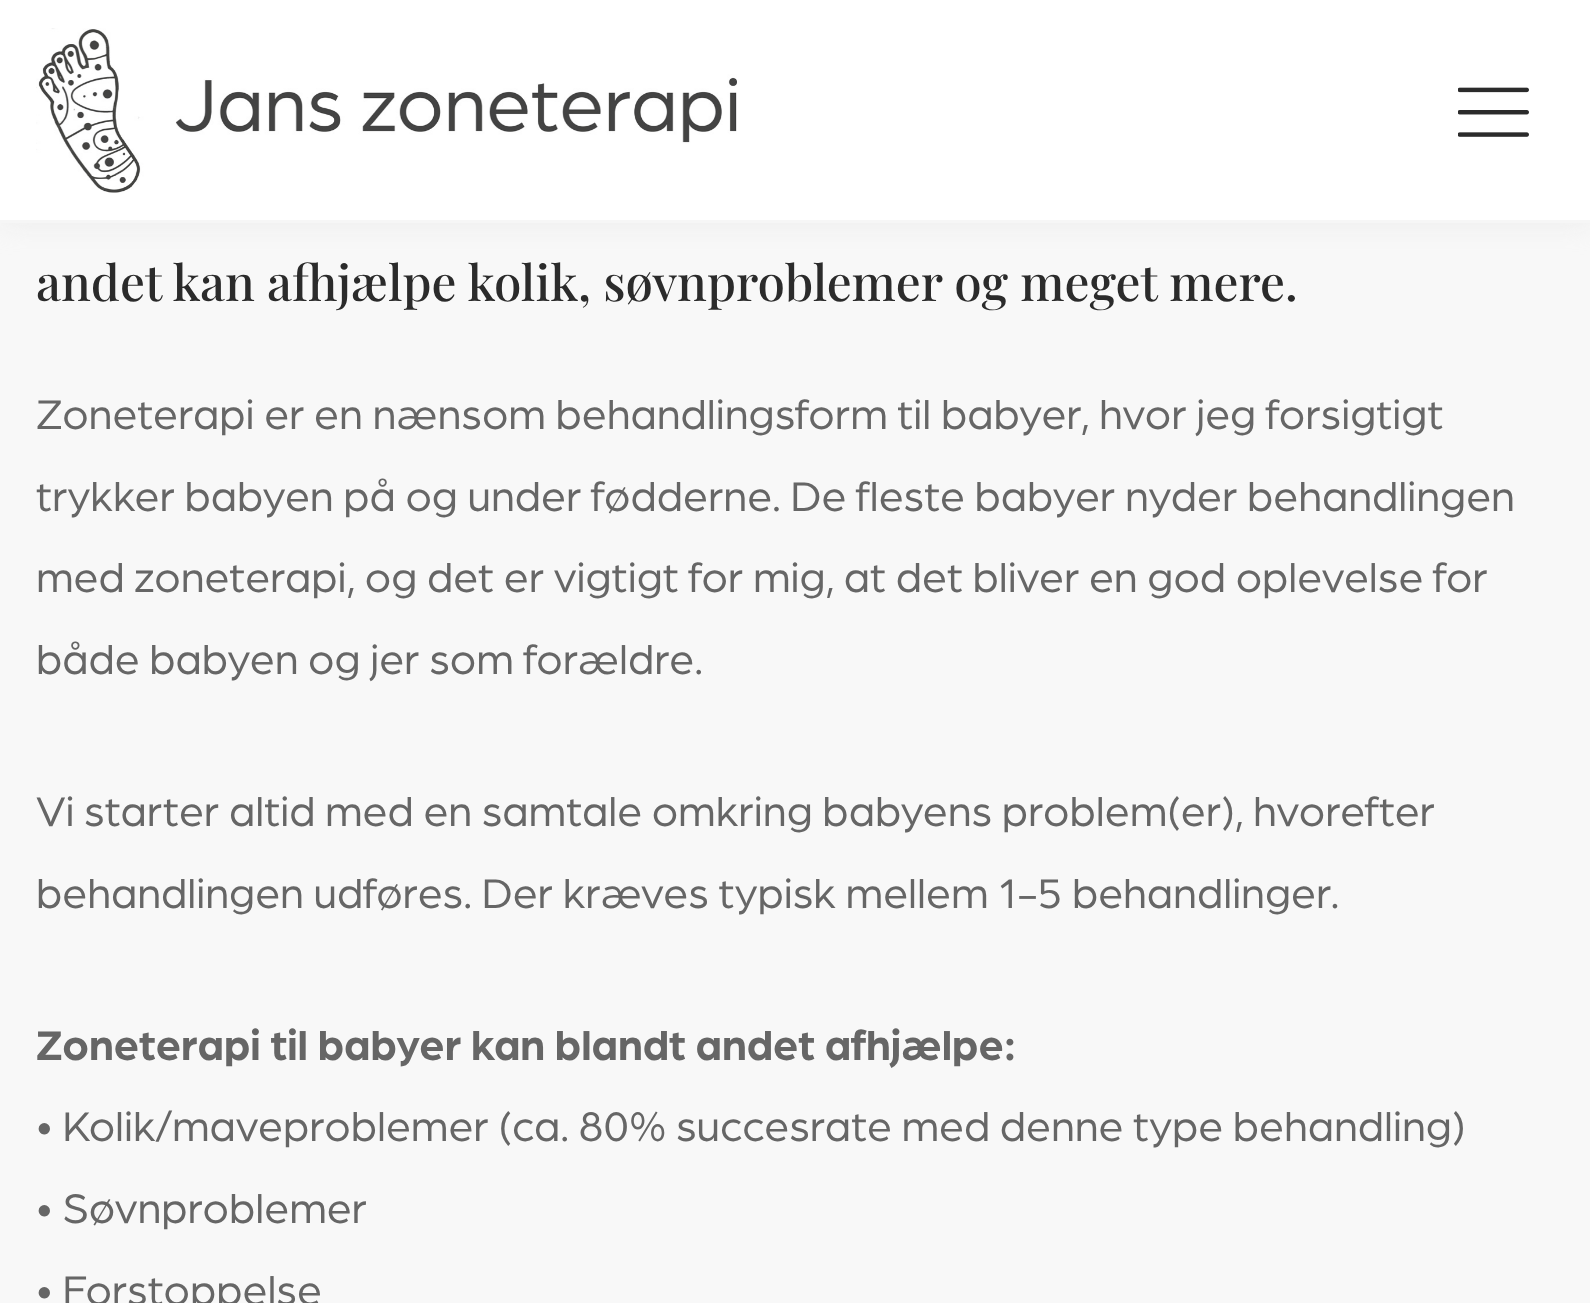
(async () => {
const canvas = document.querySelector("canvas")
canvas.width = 1590
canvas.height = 1303
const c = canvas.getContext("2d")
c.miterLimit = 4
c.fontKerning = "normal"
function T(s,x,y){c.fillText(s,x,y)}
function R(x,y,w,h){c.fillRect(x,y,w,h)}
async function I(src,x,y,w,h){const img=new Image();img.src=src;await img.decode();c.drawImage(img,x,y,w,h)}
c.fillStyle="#f8f8f8"
R(0,0,1590,1303)
c.fillStyle="#e3e3e396"
c.filter="blur(14px)"
c.beginPath()
c.rect(0,0,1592,223)
c.fill()
c.filter="none"
c.fillStyle="#fff"
R(0,0,1590,220)
c.fillStyle="#f6f6f6"
R(0,220,1590,3)
await I("1.png",36,28,701,165)
await I("2.png",1458,87,71,50)
c.font="500 49.5px Playfair Display"
c.fillStyle="#2b2b2b"
T("andet kan afhjælpe kolik, søvnproblemer og meget mere.",36,301)
c.font="44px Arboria"
c.fillStyle="#666"
T("Zoneterapi er en nænsom behandlingsform til babyer, hvor jeg forsigtigt",36,429)
T("trykker babyen på og under fødderne. De fleste babyer nyder behandlingen",36,511)
T("med zoneterapi, og det er vigtigt for mig, at det bliver en god oplevelse for",36,592)
T("både babyen og jer som forældre.",36,674)
T("Vi starter altid med en samtale omkring babyens problem(er), hvorefter",36,826)
T("behandlingen udføres. Der kræves typisk mellem 1-5 behandlinger.",36,908)
c.font="bold 44px Arboria"
T("Zoneterapi til babyer kan blandt andet afhjælpe:",36,1060)
c.font="44px Arboria"
T("• Kolik/maveproblemer (ca. 80% succesrate med denne type behandling)",36,1141)
T("• Søvnproblemer",36,1223)
T("• Forstoppelse",36,1305)
})()
